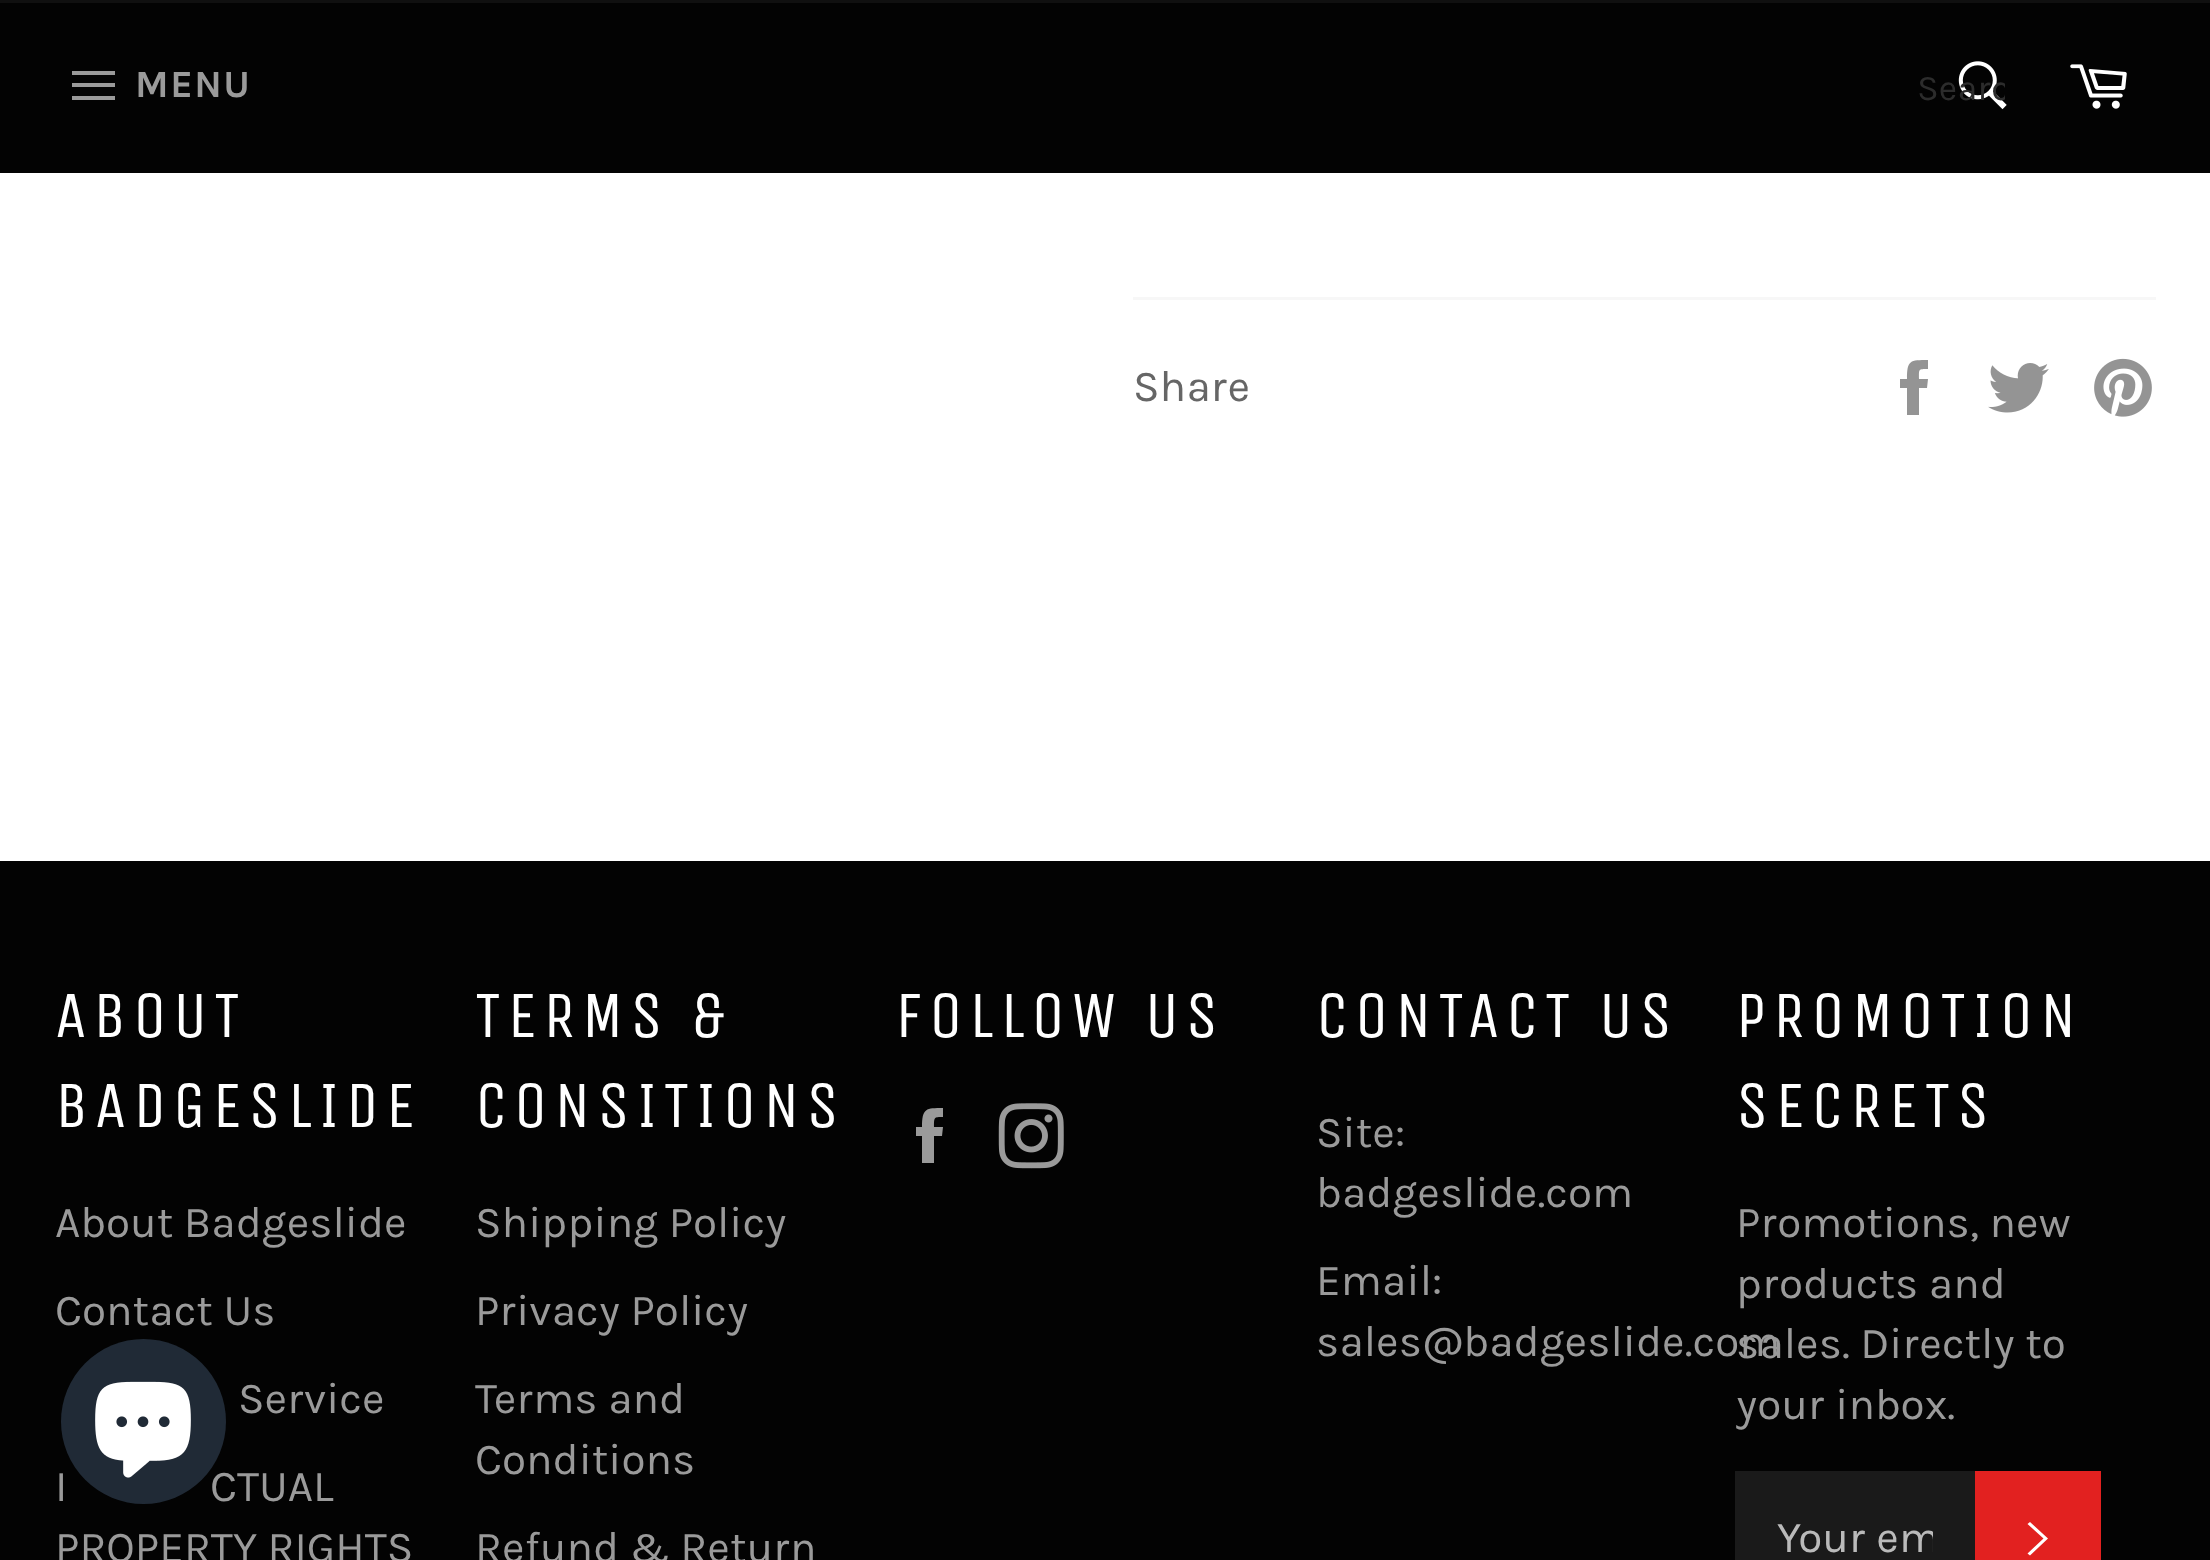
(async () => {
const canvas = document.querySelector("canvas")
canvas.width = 2210
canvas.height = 1560
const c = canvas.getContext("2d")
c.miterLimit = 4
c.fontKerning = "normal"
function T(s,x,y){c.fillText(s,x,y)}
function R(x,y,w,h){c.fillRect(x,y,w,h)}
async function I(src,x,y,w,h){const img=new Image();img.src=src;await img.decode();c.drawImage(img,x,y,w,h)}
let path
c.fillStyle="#fff"
R(0,0,2210,1560)
c.fillStyle="#030303"
R(0,3,2210,170)
c.fillStyle="#101010"
R(0,0,2210,3)
c.fillStyle="#9a9a9a"
path = new Path2D("M72 83h43v4h-43zm0-12h43v4h-43zm0 25h43v4h-43z")
c.fill(path)
c.letterSpacing="1.5px"
c.font="bold 38.5px Karla"
T("MENU",135,97)
await I("1.png",1958,61,49,49)
c.save()
c.beginPath()
c.rect(1917,69,88,41)
c.clip()
c.letterSpacing="0px"
c.font="36px Karla"
c.fillStyle="#2c2c2c"
T("Searc",1917,100)
c.restore()
await I("2.png",2070,64,57,45)
c.fillStyle="#f7f7f7"
R(1133,297,1023,3)
c.letterSpacing="0px"
c.font="44px Karla"
c.fillStyle="#666"
T("Share",1133,401)
c.fillStyle="#949494"
path = new Path2D("M1919 379c0-10-1-10 9-10v-9c-18 0-21 0-21 19h-7v9h7v27h12v-27h8l1-9z")
c.fill(path)
await I("3.png",1988,363,61,50)
await I("4.png",2094,358,58,59)
c.fillStyle="#030303"
R(0,861,2210,699)
c.letterSpacing="6.5px"
c.font="66px Unica One"
c.fillStyle="#fff"
T("ABOUT",55,1037)
T("BADGESLIDE",55,1127)
c.letterSpacing="0px"
c.font="44px Karla"
c.fillStyle="#9a9a9a"
T("About Badgeslide",55,1237)
T("Contact Us",55,1325)
T("Service",238,1413)
T("I",55,1501)
T("CTUAL",210,1501)
T("PROPERTY RIGHTS",55,1562)
c.letterSpacing="6.5px"
c.font="66px Unica One"
c.fillStyle="#fff"
T("TERMS &",475,1037)
T("CONSITIONS",475,1127)
c.letterSpacing="0px"
c.font="44px Karla"
c.fillStyle="#9a9a9a"
T("Shipping Policy",475,1237)
T("Privacy Policy",475,1325)
T("Terms and",475,1413)
T("Conditions",475,1474)
T("Refund & Return",475,1562)
c.letterSpacing="6.5px"
c.font="66px Unica One"
c.fillStyle="#fff"
T("FOLLOW US",895,1037)
c.fillStyle="#9a9a9a"
path = new Path2D("M934 1127c0-10 0-10 9-10v-9c-17 0-21 0-21 19h-6v9h6v27h12v-27h8l1-9z")
c.fill(path)
await I("5.png",998,1103,66,66)
c.fillStyle="#fff"
T("CONTACT US",1316,1037)
c.letterSpacing="0px"
c.font="44px Karla"
c.fillStyle="#9a9a9a"
T("Site:",1316,1147)
T("badgeslide.com",1316,1207)
T("Email:",1316,1295)
T("sales@badgeslide.com",1316,1356)
c.letterSpacing="6.5px"
c.font="66px Unica One"
c.fillStyle="#fff"
T("PROMOTION",1736,1037)
T("SECRETS",1736,1127)
c.letterSpacing="0px"
c.font="44px Karla"
c.fillStyle="#9a9a9a"
T("Promotions, new",1736,1237)
T("products and",1736,1298)
T("sales. Directly to",1736,1358)
T("your inbox.",1736,1419)
c.fillStyle="#1a1a1a"
R(1735,1471,240,89)
c.save()
c.beginPath()
c.rect(1777,1510,156,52)
c.clip()
c.fillStyle="#bababa"
T("Your em",1777,1552)
c.restore()
c.fillStyle="#e22120"
R(1975,1471,126,89)
c.fillStyle="#fff"
path = new Path2D("M2027.5 1524l2.5-2l18 16.5l-18 17l-2.5-2l16-15z")
c.fill(path)
c.fillStyle="#202a36"
c.beginPath()
c.arc(143.5,1421.5,82.5,0,7)
c.fill()
await I("6.png",95,1381,96,97)
})()
